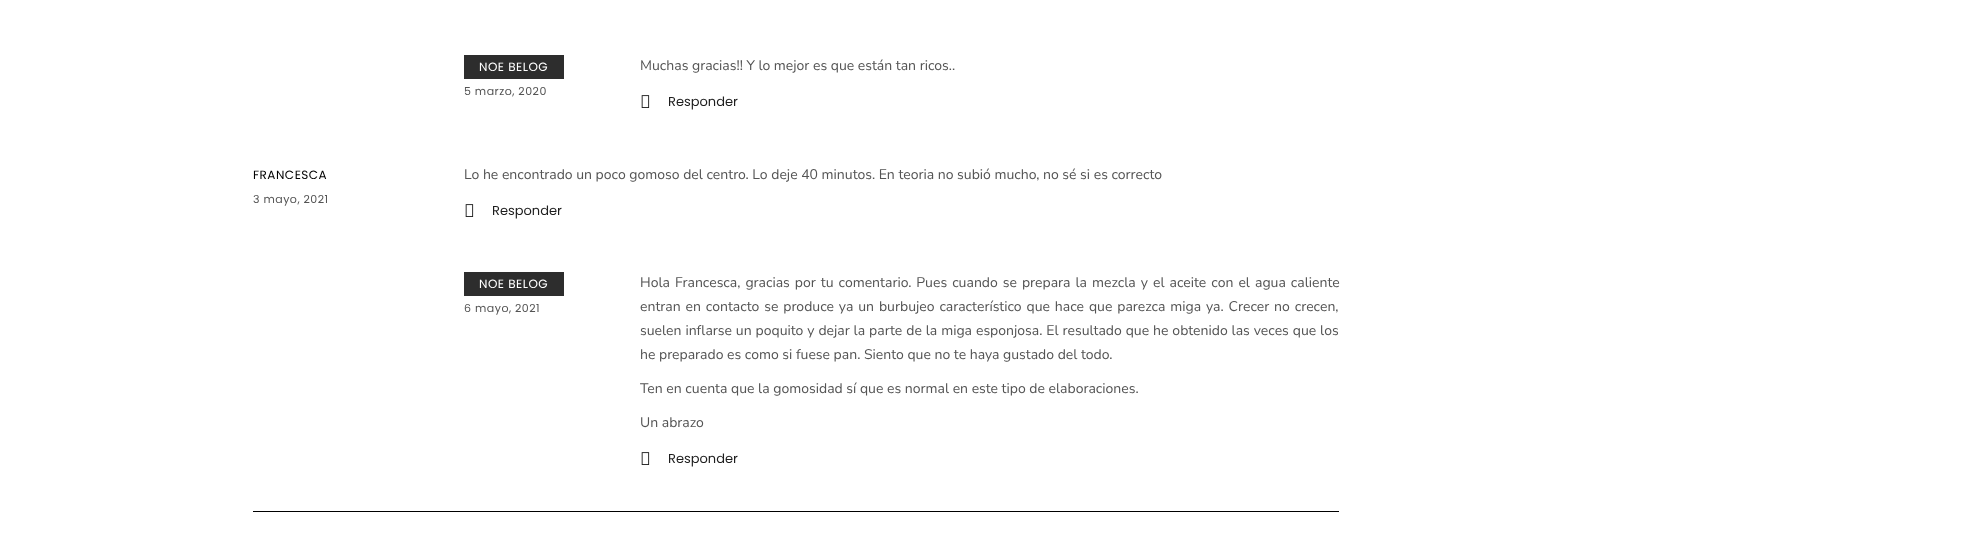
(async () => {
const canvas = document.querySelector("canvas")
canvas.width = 1964
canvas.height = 547
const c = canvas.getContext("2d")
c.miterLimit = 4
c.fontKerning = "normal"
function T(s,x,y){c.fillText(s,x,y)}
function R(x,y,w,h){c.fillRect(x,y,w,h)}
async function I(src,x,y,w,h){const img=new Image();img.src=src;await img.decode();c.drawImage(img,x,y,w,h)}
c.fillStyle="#fff"
R(0,0,1964,547)
c.fillStyle="#000"
R(253,511,1086,1)
c.fillStyle="#2d2d2d"
R(464,55,100,24)
c.letterSpacing="0.5px"
c.font="12px Poppins"
c.fillStyle="#fff"
T("NOE BELOG",479,71)
c.font="11px Poppins"
c.fillStyle="#545454"
T("5 marzo, 2020",464,95)
c.letterSpacing="0px"
c.font="14px Nunito Sans"
T("Muchas gracias!! Y lo mejor es que están tan ricos..",640,70)
await I("1.png",641,95,9,13)
c.font="13px Poppins"
c.fillStyle="#1e1e1e"
T("Responder",668,106)
c.letterSpacing="0.5px"
c.font="12px Poppins"
c.fillStyle="#000"
T("FRANCESCA",253,179)
c.font="11px Poppins"
c.fillStyle="#545454"
T("3 mayo, 2021",253,203)
c.letterSpacing="0px"
c.font="14px Nunito Sans"
T("Lo he encontrado un poco gomoso del centro. Lo deje 40 minutos. En teoria no subió mucho, no sé si es correcto",464,179)
await I("1.png",465,204,9,13)
c.font="13px Poppins"
c.fillStyle="#1e1e1e"
T("Responder",492,215)
c.fillStyle="#2d2d2d"
R(464,272,100,24)
c.letterSpacing="0.5px"
c.font="12px Poppins"
c.fillStyle="#fff"
T("NOE BELOG",479,288)
c.font="11px Poppins"
c.fillStyle="#545454"
T("6 mayo, 2021",464,312)
c.letterSpacing="0px"
c.wordSpacing="1.4px"
c.font="14px Nunito Sans"
T("Hola Francesca, gracias por tu comentario. Pues cuando se prepara la mezcla y el aceite con el agua caliente",640,287)
c.wordSpacing="1.3px"
T("entran en contacto se produce ya un burbujeo característico que hace que parezca miga ya. Crecer no crecen,",640,311)
c.wordSpacing="0.3px"
T("suelen inflarse un poquito y dejar la parte de la miga esponjosa. El resultado que he obtenido las veces que los",640,335)
c.wordSpacing="0px"
T("he preparado es como si fuese pan. Siento que no te haya gustado del todo.",640,359)
T("Ten en cuenta que la gomosidad sí que es normal en este tipo de elaboraciones.",640,393)
T("Un abrazo",640,427)
await I("1.png",641,452,9,13)
c.font="13px Poppins"
c.fillStyle="#1e1e1e"
T("Responder",668,463)
})()
